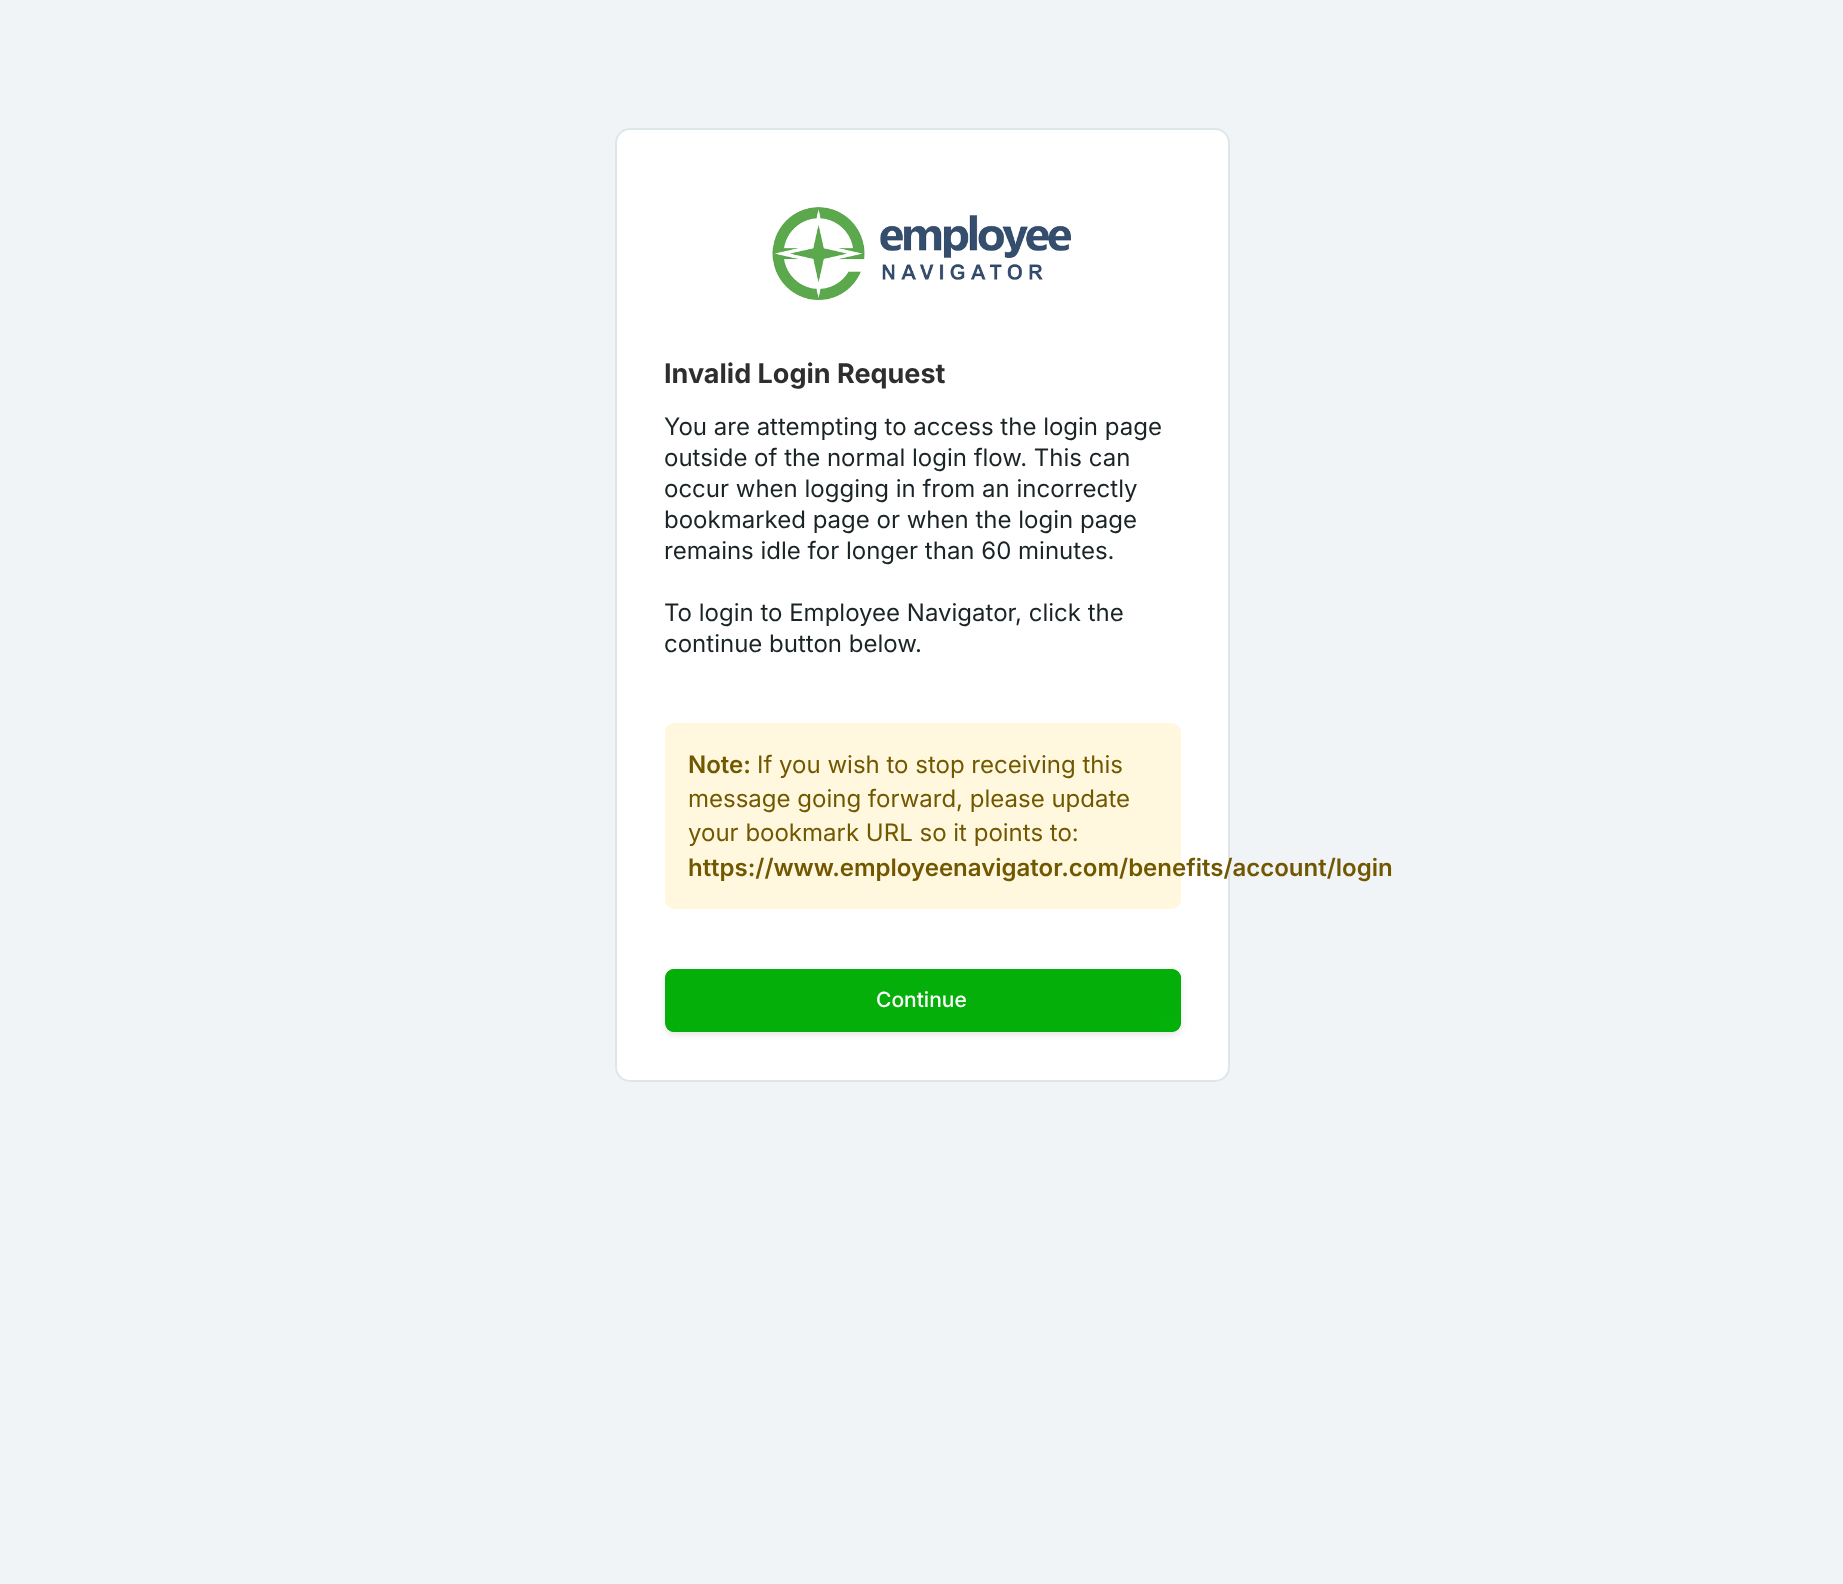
(async () => {
const canvas = document.querySelector("canvas")
canvas.width = 1843
canvas.height = 1584
const c = canvas.getContext("2d")
c.miterLimit = 4
c.fontKerning = "normal"
function T(s,x,y){c.fillText(s,x,y)}
function R(x,y,w,h){c.fillRect(x,y,w,h)}
function Q(x,y,w,h,r){c.beginPath();c.roundRect(x,y,w,h,r);c.fill()}
async function I(src,x,y,w,h){const img=new Image();img.src=src;await img.decode();c.drawImage(img,x,y,w,h)}
let gradient
c.fillStyle="#f0f4f7"
R(0,0,1843,1584)
c.fillStyle="#fff"
c.beginPath()
c.roundRect(616,129,613,952,14)
c.fill()
c.strokeStyle="#dee6e9"
c.lineWidth=2
c.stroke()
await I("1.png",772,207,299,93)
c.font="bold 27px Inter"
c.fillStyle="#2e2e2e"
T("Invalid Login Request",664,383)
c.font="24px Inter"
c.fillStyle="#1a2426"
T("You are attempting to access the login page",664,435)
T("outside of the normal login flow. This can",664,466)
T("occur when logging in from an incorrectly",664,497)
T("bookmarked page or when the login page",664,528)
T("remains idle for longer than 60 minutes.",664,559)
T("To login to Employee Navigator, click the",664,621)
T("continue button below.",664,652)
c.fillStyle="#fff8de"
Q(665,723,516,186,9)
c.font="600 24px Inter"
c.fillStyle="#715800"
T("Note:",688,773)
c.font="24px Inter"
T("If you wish to stop receiving this",757,773)
T("message going forward, please update",688,807)
T("your bookmark URL so it points to:",688,841)
c.font="600 24px Inter"
T("https://www.employeenavigator.com/benefits/account/login",688,876)
c.fillStyle="#0000001a"
c.filter="blur(3px)"
c.beginPath()
c.roundRect(665,972,516,63,9)
c.fill()
c.filter="none"
c.save()
c.beginPath()
c.roundRect(665,969,516,63,9)
c.clip()
gradient = c.createLinearGradient(982,719,1376,1282)
gradient.addColorStop(.5,"#04af0a")
gradient.addColorStop(1,"#08d30f")
c.fillStyle = gradient
c.beginPath()
c.roundRect(666,969,515,63,[0,9,9,0])
c.fill()
c.restore()
c.beginPath()
c.roundRect(666,970,514,61,8)
c.strokeStyle="#04af0a"
c.stroke()
c.font="500 21px Inter"
c.fillStyle="#fff"
T("Continue",876,1007)
})()
